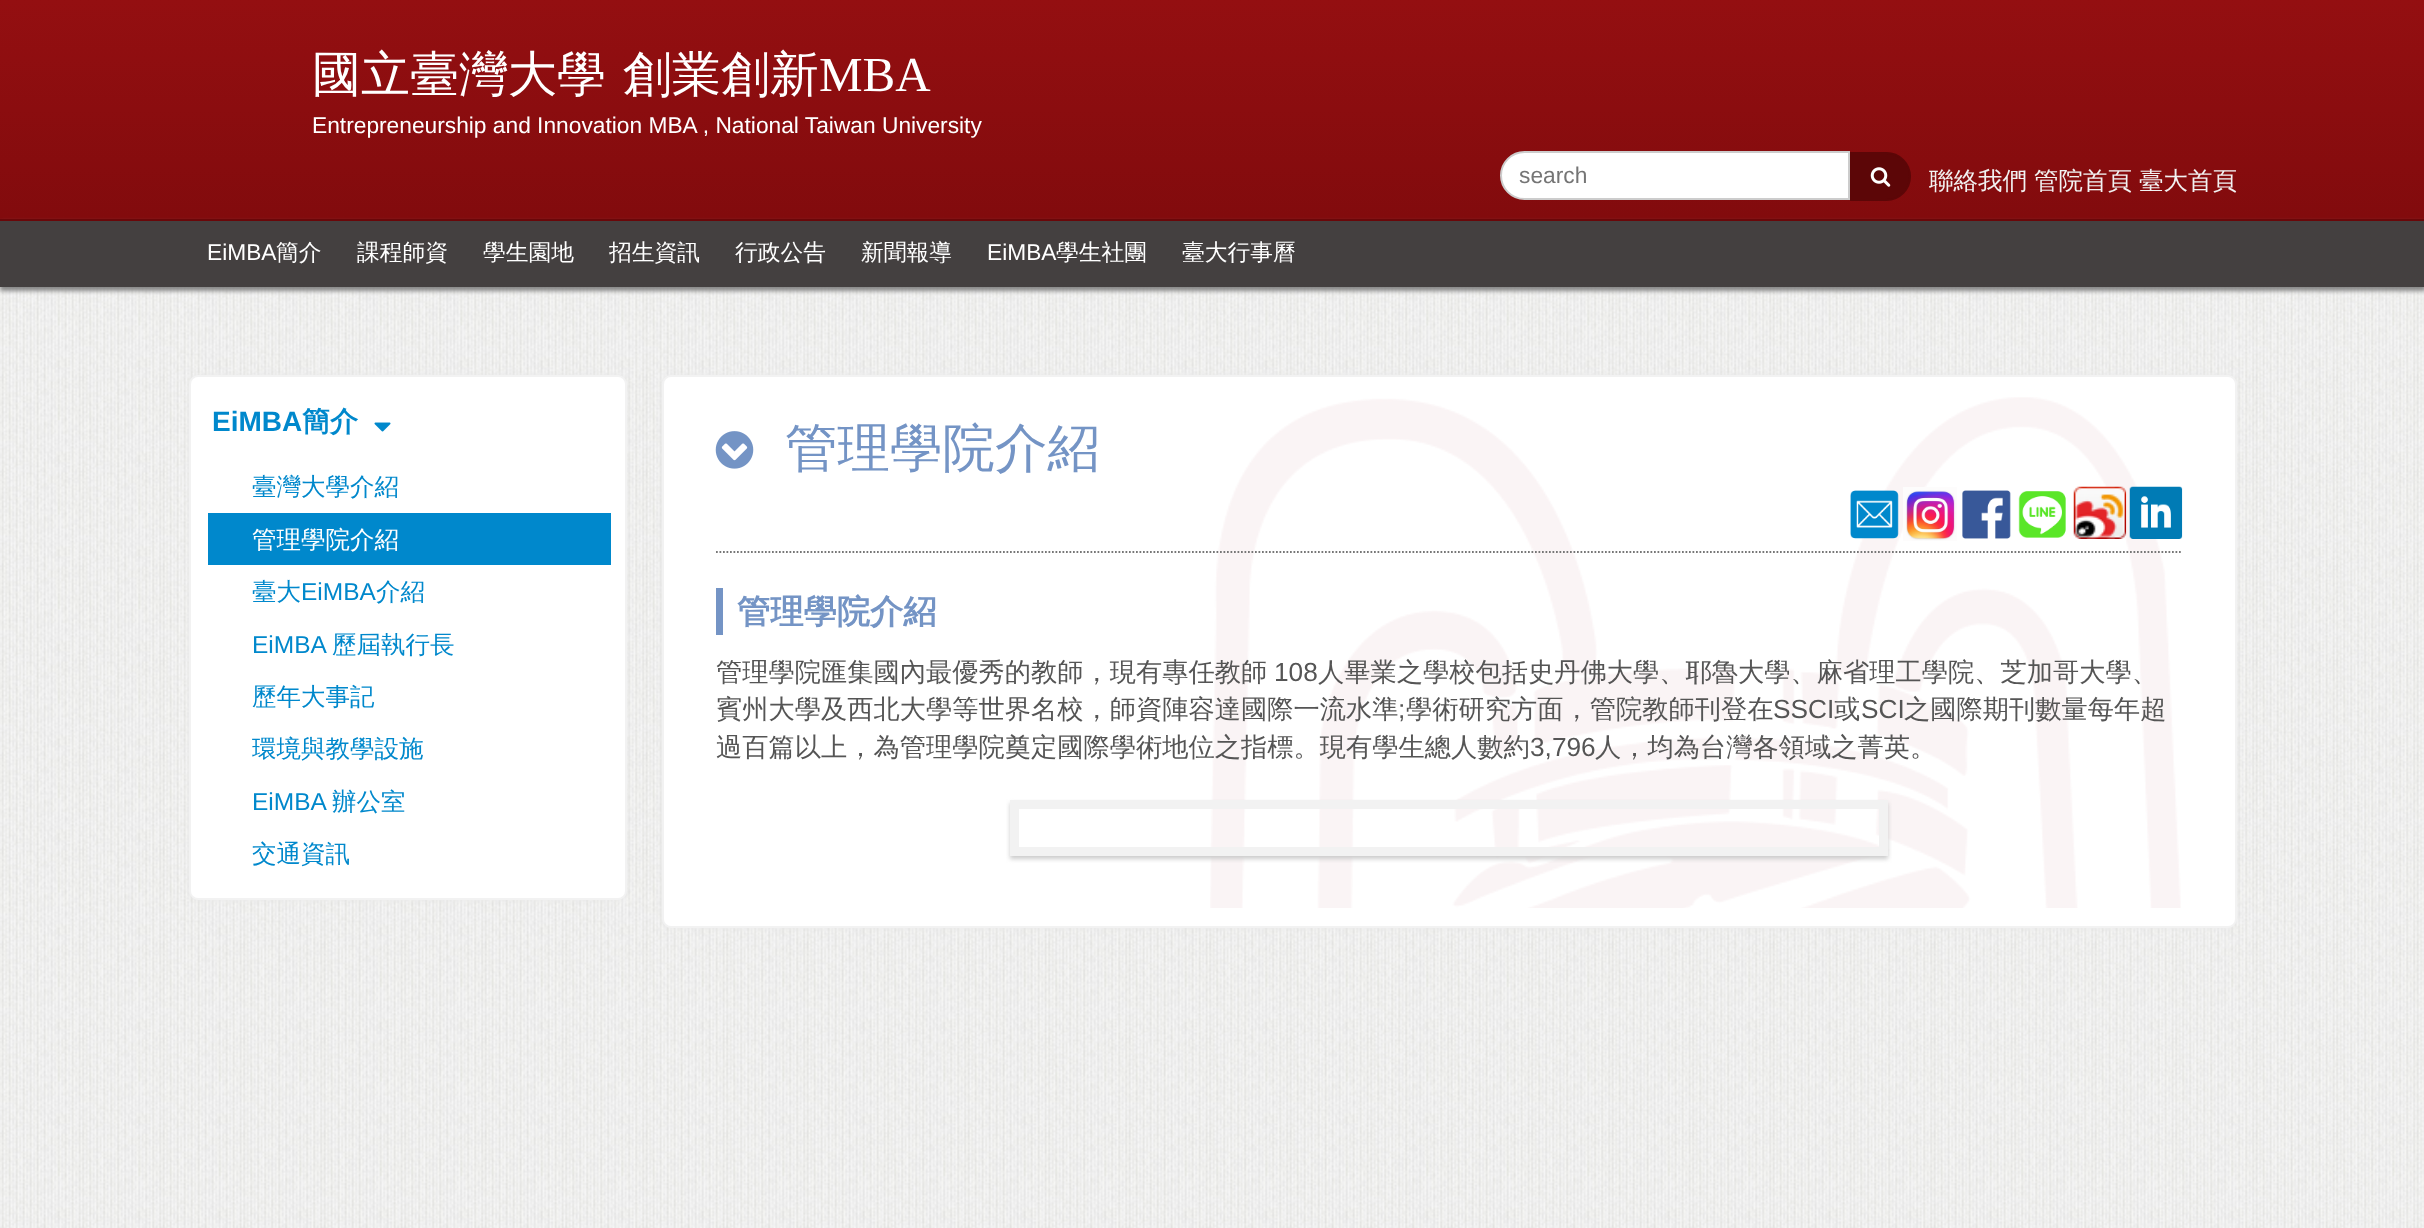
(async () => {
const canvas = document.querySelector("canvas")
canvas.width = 2424
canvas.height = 1228
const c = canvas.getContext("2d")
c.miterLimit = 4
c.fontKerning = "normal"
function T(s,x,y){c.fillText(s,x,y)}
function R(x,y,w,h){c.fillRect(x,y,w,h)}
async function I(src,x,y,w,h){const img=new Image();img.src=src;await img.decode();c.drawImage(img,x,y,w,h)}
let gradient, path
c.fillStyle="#fff"
R(0,0,2424,1228)
await I("1.png",0,287,2424,941)
gradient = c.createLinearGradient(1213,0,1213,219)
gradient.addColorStop(0,"#940f11")
gradient.addColorStop(1,"#820b0d")
c.fillStyle = gradient
R(0,0,2424,219)
c.font="500 49px WenQuanYi Zen Hei"
c.fillStyle="#fff"
T("國立臺灣大學",312,91)
T("創業創新",623,91)
c.font="49px Liberation Serif"
T("MBA",819,91)
c.font="22.75px Liberation Sans"
T("Entrepreneurship and Innovation MBA , National Taiwan University",312,133)
c.beginPath()
c.roundRect(1501,152,348,47,[23.5,0,0,23.5])
c.fill()
c.strokeStyle="#ccc"
c.lineWidth=2
c.stroke()
c.fillStyle="#757575"
T("search",1519,183)
c.fillStyle="#5c0607"
c.beginPath()
c.roundRect(1851,153,59,47,[0,23.5,23.5,0])
c.fill()
c.strokeStyle="#5c0607"
c.stroke()
await I("2.png",1870,167,21,20)
c.font="500 24.5px WenQuanYi Zen Hei"
c.fillStyle="#f2f2f2"
T("聯絡我們",1929,189)
T("管院首頁",2034,189)
T("臺大首頁",2139,189)
c.fillStyle="#888"
c.filter="blur(2px)"
c.beginPath()
c.rect(0,222,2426,69)
c.fill()
c.filter="none"
c.fillStyle="#444040"
R(0,221,2424,66)
c.fillStyle="#6a0709"
R(0,219,2424,2)
c.font="22.75px Liberation Sans"
c.fillStyle="#fff"
T("EiMBA",207,260)
c.font="500 22.75px WenQuanYi Zen Hei"
T("簡介",276,260)
T("課程師資",357,260)
T("學生園地",483,260)
T("招生資訊",609,260)
T("行政公告",735,260)
T("新聞報導",861,260)
c.font="22.75px Liberation Sans"
T("EiMBA",987,260)
c.font="500 22.75px WenQuanYi Zen Hei"
T("學生社團",1056,260)
T("臺大行事曆",1182,260)
c.fillStyle="#e8e8e8"
c.filter="blur(2px)"
c.beginPath()
c.roundRect(189,375,438,525,9)
c.fill()
c.filter="none"
c.fillStyle="#fff"
c.beginPath()
c.roundRect(190,376,436,523,8)
c.fill()
c.strokeStyle="#f2f2f2"
c.stroke()
c.font="bold 28px Liberation Sans"
c.fillStyle="#08c"
T("EiMBA",212,431)
c.font="bold 28px WenQuanYi Zen Hei"
T("簡介",302,431)
await I("3.png",374,422,17,10)
c.font="500 24.5px WenQuanYi Zen Hei"
T("臺灣大學介紹",252,495)
R(208,513,403,52)
c.fillStyle="#fff"
T("管理學院介紹",252,548)
c.fillStyle="#08c"
T("臺大",252,600)
c.font="24.5px Liberation Sans"
T("EiMBA",301,600)
c.font="500 24.5px WenQuanYi Zen Hei"
T("介紹",376,600)
c.font="24.5px Liberation Sans"
T("EiMBA",252,653)
c.font="500 24.5px WenQuanYi Zen Hei"
T("歷屆執行長",332,653)
T("歷年大事記",252,705)
T("環境與教學設施",252,757)
c.font="24.5px Liberation Sans"
T("EiMBA",252,810)
c.font="500 24.5px WenQuanYi Zen Hei"
T("辦公室",332,810)
T("交通資訊",252,862)
c.fillStyle="#e8e8e8"
c.filter="blur(2px)"
c.beginPath()
c.roundRect(662,375,1575,553,9)
c.fill()
c.filter="none"
c.fillStyle="#fff"
c.beginPath()
c.roundRect(663,376,1573,551,8)
c.fill()
c.stroke()
await I("4.png",1210,397,971,511)
await I("5.png",715,431,39,38)
c.font="500 52.5px WenQuanYi Zen Hei"
c.fillStyle="#7494c5"
T("管理學院介紹",785,466)
await I("6.png",1850,490,49,49)
await I("7.png",1903,487,54,54)
await I("8.png",1962,490,49,49)
await I("9.png",2018,491,48,47)
await I("10.png",2073,486,54,53)
await I("11.png",2129,486,54,53)
path = new Path2D("M716 552h1466")
c.strokeStyle="#777"
c.lineWidth=1.8
c.setLineDash([1.75,1.75])
c.stroke(path)
R(716,588,7,47)
c.font="bold 33.25px WenQuanYi Zen Hei"
T("管理學院介紹",737,623)
c.font="500 26.25px WenQuanYi Zen Hei"
c.fillStyle="#555"
T("管理學院匯集國內最優秀的教師，現有專任教師",716,681)
c.font="26.25px Liberation Sans"
T("108",1274,681)
c.font="500 26.25px WenQuanYi Zen Hei"
T("人畢業之學校包括史丹佛大學、耶魯大學、麻省理工學院、芝加哥大學、",1318,681)
T("賓州大學及西北大學等世界名校，師資陣容達國際一流水準",716,718)
c.font="26.25px Liberation Sans"
T(";",1398,718)
c.font="500 26.25px WenQuanYi Zen Hei"
T("學術研究方面，管院教師刊登在",1406,718)
c.font="26.25px Liberation Sans"
T("SSCI",1773,718)
c.font="500 26.25px WenQuanYi Zen Hei"
T("或",1834,718)
c.font="26.25px Liberation Sans"
T("SCI",1861,718)
c.font="500 26.25px WenQuanYi Zen Hei"
T("之國際期刊數量每年超",1904,718)
T("過百篇以上，為管理學院奠定國際學術地位之指標。現有學生總人數約",716,756)
c.font="26.25px Liberation Sans"
T("3,796",1530,756)
c.font="500 26.25px WenQuanYi Zen Hei"
T("人，均為台灣各領域之菁英。",1595,756)
c.save()
path = new Path2D("M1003 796h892v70h-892zm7 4h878v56h-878z")
c.clip(path,"evenodd")
c.fillStyle="#ccc"
c.filter="blur(2px)"
c.beginPath()
c.rect(1010,803,878,56)
c.fill()
c.filter="none"
c.restore()
c.strokeStyle="#f2f2f2"
c.lineWidth=9
c.setLineDash([])
c.strokeRect(1014.5,804.5,869,47)
})()
